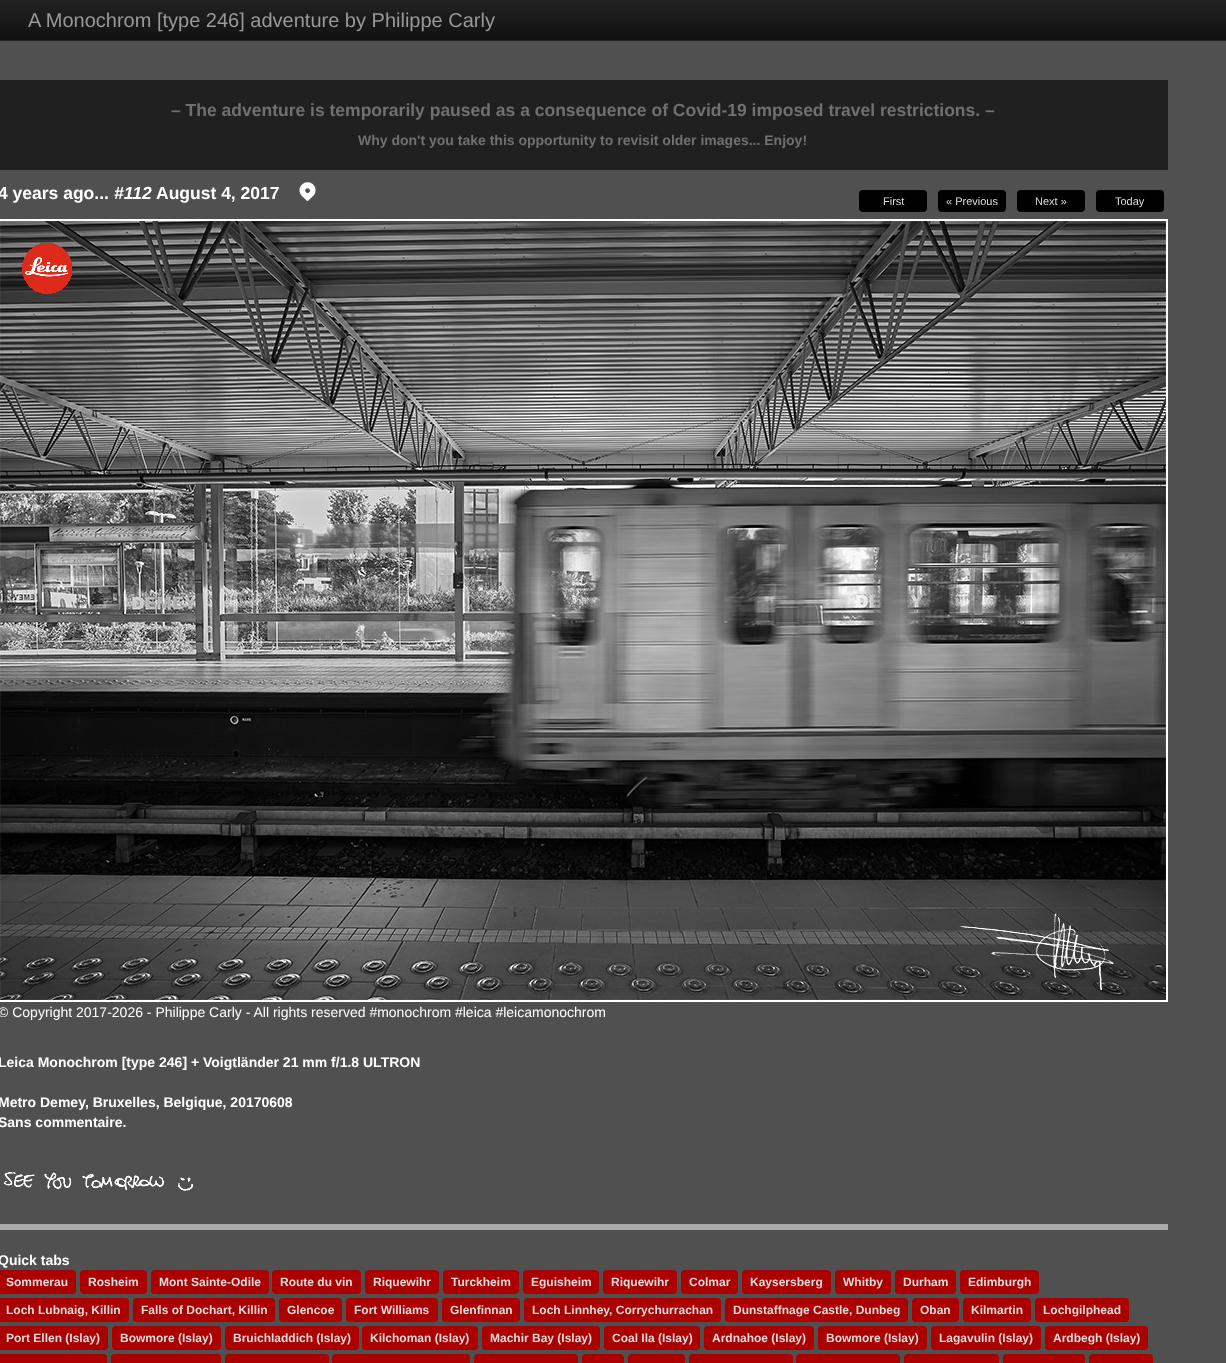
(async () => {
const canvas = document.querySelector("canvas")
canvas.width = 1226
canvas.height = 1363
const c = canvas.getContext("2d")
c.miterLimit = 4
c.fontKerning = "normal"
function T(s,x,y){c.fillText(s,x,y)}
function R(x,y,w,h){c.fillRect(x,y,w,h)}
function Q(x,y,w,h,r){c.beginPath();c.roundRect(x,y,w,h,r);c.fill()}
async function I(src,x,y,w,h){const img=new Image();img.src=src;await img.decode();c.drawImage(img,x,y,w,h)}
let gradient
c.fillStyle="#505050"
R(0,0,1226,1363)
gradient = c.createLinearGradient(613,0,613,40)
gradient.addColorStop(0,"#222")
gradient.addColorStop(1,"#111")
c.fillStyle = gradient
R(0,0,1226,40)
c.fillStyle="#252525"
R(0,40,1226,1)
c.font="20px Liberation Sans"
c.fillStyle="#999"
T("A Monochrom [type 246] adventure by Philippe Carly",28,27)
c.fillStyle="#202020"
R(0,80,1168,90)
c.font="bold 17.5px Liberation Sans"
c.fillStyle="#707070"
T("– The adventure is temporarily paused as a consequence of Covid-19 imposed travel restrictions. –",171,116)
c.font="bold 14px Liberation Sans"
T("Why don't you take this opportunity to revisit older images... Enjoy!",358,145)
c.font="bold 17.5px Liberation Sans"
c.fillStyle="#fff"
T("4 years ago...",-2,199)
c.font="italic bold 17.5px Liberation Sans"
T("#112",114,199)
c.font="bold 17.5px Liberation Sans"
T("August 4, 2017",156,199)
await I("1.png",299,182,17,19)
c.fillStyle="#000"
Q(859,190,68,22,4)
c.font="11px Liberation Sans"
c.fillStyle="#ddd"
T("First",883,205)
c.fillStyle="#000"
Q(938,190,68,22,4)
c.fillStyle="#ddd"
T("« Previous",946,205)
c.fillStyle="#000"
Q(1017,190,68,22,4)
c.fillStyle="#ddd"
T("Next »",1035,205)
c.fillStyle="#000"
Q(1096,190,68,22,4)
c.fillStyle="#ddd"
T("Today",1115,205)
await I("3.png",0,219,1168,783)
await I("2.png",22,243,50,51)
c.font="14px Liberation Sans"
c.fillStyle="#fff"
T("© Copyright 2017-2026 - Philippe Carly - All rights reserved #monochrom #leica #leicamonochrom",-2,1017)
c.font="bold 14px Liberation Sans"
T("Leica Monochrom [type 246] + Voigtländer 21 mm f/1.8 ULTRON",-2,1067)
T("Metro Demey, Bruxelles, Belgique, 20170608",-2,1107)
T("Sans commentaire.",-2,1127)
await I("4.png",4,1172,189,19)
c.fillStyle="#aaa"
R(0,1224,1168,6)
c.fillStyle="#fff"
T("Quick tabs",-2,1265)
c.fillStyle="#a00"
Q(-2,1270,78,24,4)
c.font="bold 12px Liberation Sans"
c.fillStyle="#ddd"
T("Sommerau",6,1286)
c.fillStyle="#a00"
Q(80,1270,67,24,4)
c.fillStyle="#ddd"
T("Rosheim",88,1286)
c.fillStyle="#a00"
Q(151,1270,118,24,4)
c.fillStyle="#ddd"
T("Mont Sainte-Odile",159,1286)
c.fillStyle="#a00"
Q(272,1270,89,24,4)
c.fillStyle="#ddd"
T("Route du vin",280,1286)
c.fillStyle="#a00"
Q(365,1270,74,24,4)
c.fillStyle="#ddd"
T("Riquewihr",373,1286)
c.fillStyle="#a00"
Q(443,1270,76,24,4)
c.fillStyle="#ddd"
T("Turckheim",451,1286)
c.fillStyle="#a00"
Q(523,1270,76,24,4)
c.fillStyle="#ddd"
T("Eguisheim",531,1286)
c.fillStyle="#a00"
Q(603,1270,74,24,4)
c.fillStyle="#ddd"
T("Riquewihr",611,1286)
c.fillStyle="#a00"
Q(681,1270,57,24,4)
c.fillStyle="#ddd"
T("Colmar",689,1286)
c.fillStyle="#a00"
Q(742,1270,89,24,4)
c.fillStyle="#ddd"
T("Kaysersberg",750,1286)
c.fillStyle="#a00"
Q(835,1270,56,24,4)
c.fillStyle="#ddd"
T("Whitby",843,1286)
c.fillStyle="#a00"
Q(895,1270,61,24,4)
c.fillStyle="#ddd"
T("Durham",903,1286)
c.fillStyle="#a00"
Q(960,1270,79,24,4)
c.fillStyle="#ddd"
T("Edimburgh",968,1286)
c.fillStyle="#a00"
Q(-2,1298,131,24,4)
c.fillStyle="#ddd"
T("Loch Lubnaig, Killin",6,1314)
c.fillStyle="#a00"
Q(133,1298,142,24,4)
c.fillStyle="#ddd"
T("Falls of Dochart, Killin",141,1314)
c.fillStyle="#a00"
Q(279,1298,63,24,4)
c.fillStyle="#ddd"
T("Glencoe",287,1314)
c.fillStyle="#a00"
Q(346,1298,92,24,4)
c.fillStyle="#ddd"
T("Fort Williams",354,1314)
c.fillStyle="#a00"
Q(442,1298,78,24,4)
c.fillStyle="#ddd"
T("Glenfinnan",450,1314)
c.fillStyle="#a00"
Q(524,1298,197,24,4)
c.fillStyle="#ddd"
T("Loch Linnhey, Corrychurrachan",532,1314)
c.fillStyle="#a00"
Q(725,1298,183,24,4)
c.fillStyle="#ddd"
T("Dunstaffnage Castle, Dunbeg",733,1314)
c.fillStyle="#a00"
Q(912,1298,47,24,4)
c.fillStyle="#ddd"
T("Oban",920,1314)
c.fillStyle="#a00"
Q(963,1298,68,24,4)
c.fillStyle="#ddd"
T("Kilmartin",971,1314)
c.fillStyle="#a00"
Q(1035,1298,94,24,4)
c.fillStyle="#ddd"
T("Lochgilphead",1043,1314)
c.fillStyle="#a00"
Q(-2,1326,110,24,4)
c.fillStyle="#ddd"
T("Port Ellen (Islay)",6,1342)
c.fillStyle="#a00"
Q(112,1326,109,24,4)
c.fillStyle="#ddd"
T("Bowmore (Islay)",120,1342)
c.fillStyle="#a00"
Q(225,1326,134,24,4)
c.fillStyle="#ddd"
T("Bruichladdich (Islay)",233,1342)
c.fillStyle="#a00"
Q(362,1326,116,24,4)
c.fillStyle="#ddd"
T("Kilchoman (Islay)",370,1342)
c.fillStyle="#a00"
Q(482,1326,118,24,4)
c.fillStyle="#ddd"
T("Machir Bay (Islay)",490,1342)
c.fillStyle="#a00"
Q(604,1326,96,24,4)
c.fillStyle="#ddd"
T("Coal Ila (Islay)",612,1342)
c.fillStyle="#a00"
Q(704,1326,110,24,4)
c.fillStyle="#ddd"
T("Ardnahoe (Islay)",712,1342)
c.fillStyle="#a00"
Q(818,1326,109,24,4)
c.fillStyle="#ddd"
T("Bowmore (Islay)",826,1342)
c.fillStyle="#a00"
Q(931,1326,110,24,4)
c.fillStyle="#ddd"
T("Lagavulin (Islay)",939,1342)
c.fillStyle="#a00"
Q(1045,1326,103,24,4)
c.fillStyle="#ddd"
T("Ardbegh (Islay)",1053,1342)
c.fillStyle="#a00"
Q(-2,1354,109,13,4)
Q(111,1354,110,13,4)
Q(225,1354,104,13,4)
Q(332,1354,138,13,4)
Q(474,1354,104,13,4)
Q(582,1354,42,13,4)
Q(628,1354,57,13,4)
Q(689,1354,104,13,4)
Q(796,1354,104,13,4)
Q(904,1354,95,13,4)
Q(1003,1354,82,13,4)
Q(1089,1354,64,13,4)
})()
